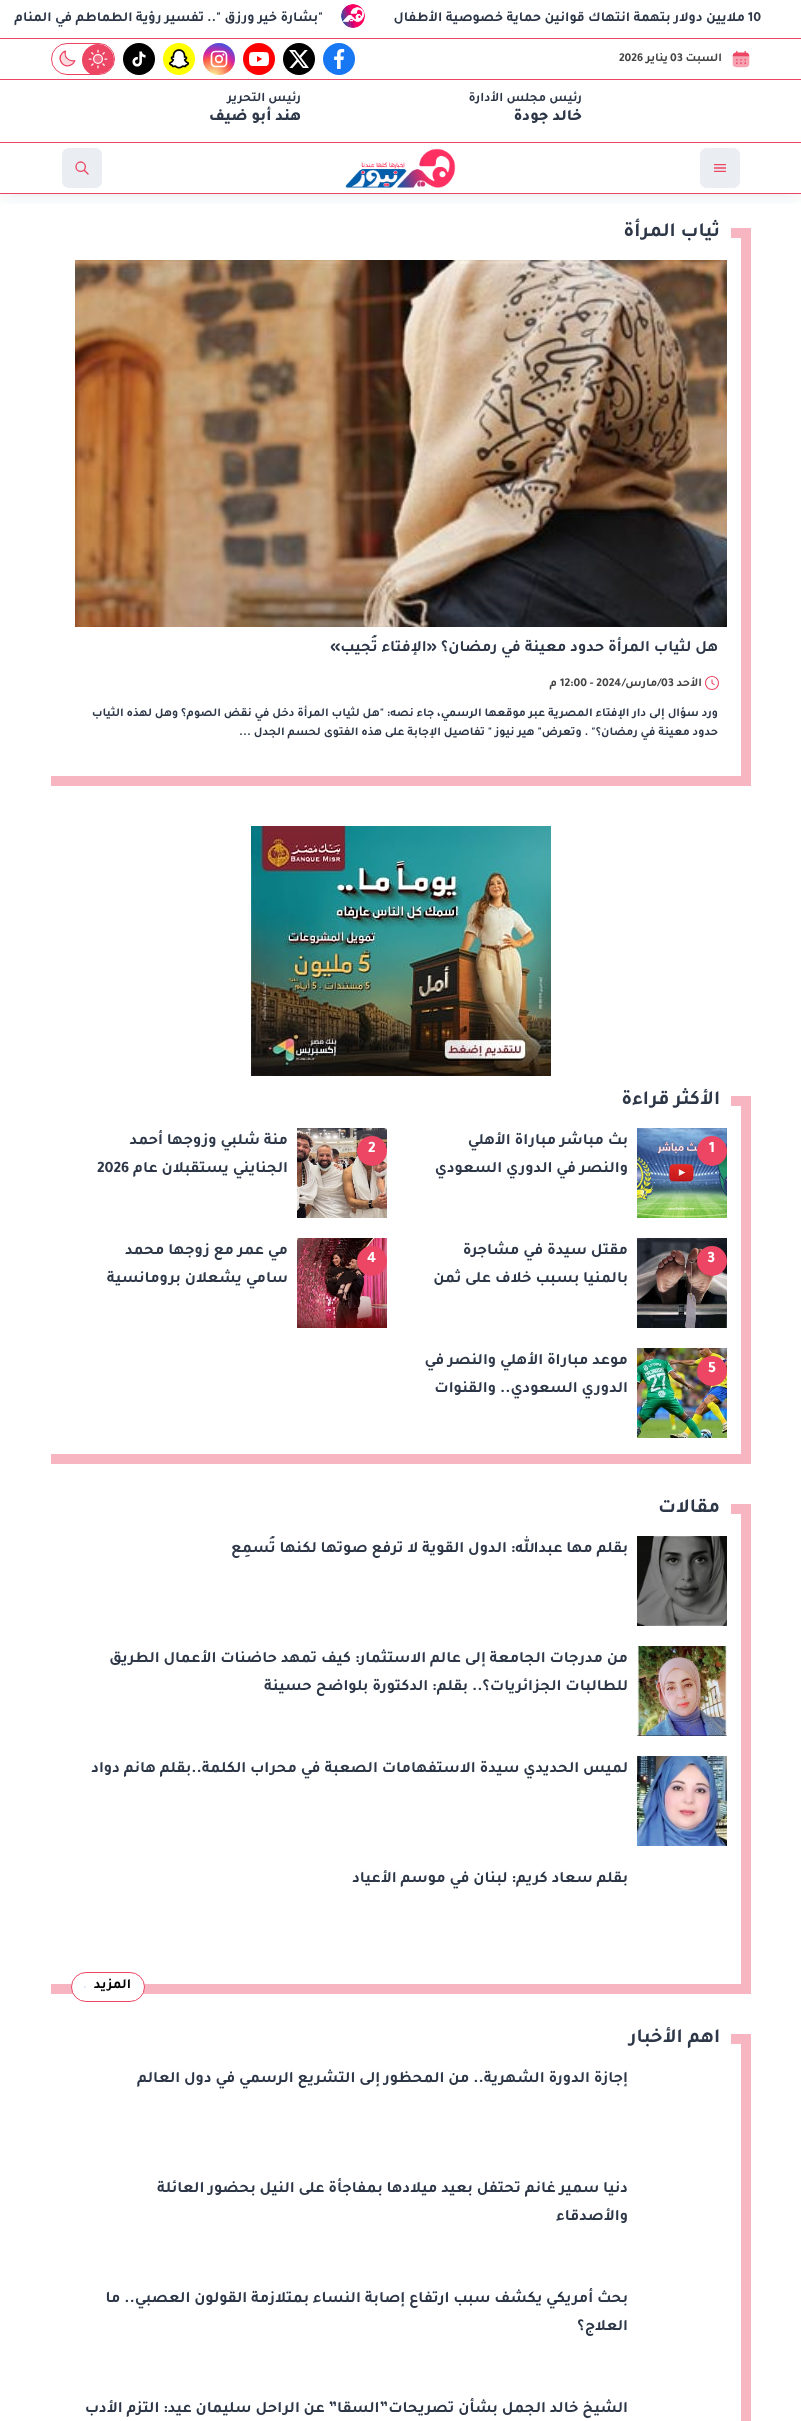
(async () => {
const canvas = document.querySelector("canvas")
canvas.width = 801
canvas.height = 2421
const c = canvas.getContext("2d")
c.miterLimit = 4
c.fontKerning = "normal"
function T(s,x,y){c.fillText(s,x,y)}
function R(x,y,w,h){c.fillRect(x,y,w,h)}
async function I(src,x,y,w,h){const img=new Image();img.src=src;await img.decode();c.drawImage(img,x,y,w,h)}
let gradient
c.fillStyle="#fff"
R(0,0,801,2421)
c.save()
c.beginPath()
c.rect(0,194,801,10)
c.clip()
c.fillStyle="#00315a1f"
c.filter="blur(10px)"
c.beginPath()
c.rect(0,39,801,155)
c.fill()
c.filter="none"
c.restore()
R(0,25,801,13)
c.fillStyle="#ec4664"
R(0,38,801,1)
c.font="bold 14px Tajawal"
c.fillStyle="#2d3748"
T("10",748,21)
c.direction="rtl"
T("ملايين دولار بتهمة انتهاك قوانين حماية خصوصية الأطفال",745,21)
await I("1.png",341,4,24,24)
T("\"بشارة خير ورزق \"..",323,21)
T("تفسير رؤية الطماطم في المنام",204,21)
c.fillStyle="#ec4664"
R(0,79,801,1)
await I("2.png",732,50,18,18)
c.font="bold 12px Tajawal"
c.fillStyle="#444"
T("السبت",722,61)
c.direction="ltr"
T("03",670,61)
c.direction="rtl"
T("يناير",668,61)
c.direction="ltr"
T("2026",619,61)
c.fillStyle="#1877f2"
c.beginPath()
c.arc(339,59,16,0,7)
c.fill()
await I("3.png",334,49,11,20)
c.fillStyle="#000"
c.beginPath()
c.arc(299,59,16,0,7)
c.fill()
await I("4.png",289,50,20,18)
c.fillStyle="#f00"
c.beginPath()
c.arc(259,59,16,0,7)
c.fill()
await I("5.png",249,52,20,14)
gradient = c.createRadialGradient(213,77,0,213,77,41)
gradient.addColorStop(0,"#fdf497")
gradient.addColorStop(.05,"#fdf497")
gradient.addColorStop(.45,"#fd5949")
gradient.addColorStop(.6,"#d6249f")
gradient.addColorStop(.9,"#285aeb")
c.fillStyle = gradient
c.beginPath()
c.arc(219,59,16,0,7)
c.fill()
await I("6.png",210,50,18,18)
c.fillStyle="#ff0"
c.beginPath()
c.arc(179,59,16,0,7)
c.fill()
await I("7.png",169,49,20,20)
c.fillStyle="#010101"
c.beginPath()
c.arc(139,59,16,0,7)
c.fill()
await I("8.png",132,51,14,16)
c.beginPath()
c.roundRect(51.5,43.5,63,31,15.5)
c.strokeStyle="#ec4664"
c.stroke()
c.save()
c.beginPath()
c.roundRect(52,44,62,30,15)
c.clip()
c.fillStyle="#ec4664"
c.beginPath()
c.arc(98,60,16,0,7)
c.fill()
c.restore()
await I("9.png",88,49,20,20)
await I("10.png",59,50,17,17)
c.direction="rtl"
c.font="bold 13px Tajawal"
c.fillStyle="#2d3748"
T("رئيس مجلس الأدارة",582,101)
c.font="800 16px Tajawal"
T("خالد جودة",582,120)
c.font="bold 13px Tajawal"
T("رئيس التحرير",301,101)
c.font="800 16px Tajawal"
T("هند أبو ضيف",301,120)
c.fillStyle="#ec4664"
R(0,142,801,1)
R(0,193,801,1)
c.fillStyle="#eaeef2"
c.beginPath()
c.roundRect(699.5,147.5,41,41,7.5)
c.fill()
c.strokeStyle="#fff"
c.stroke()
await I("11.png",714,164,12,8)
await I("12.png",345,148,111,40)
c.beginPath()
c.roundRect(61.5,147.5,41,41,7.5)
c.fill()
c.stroke()
await I("13.png",75,161,14,14)
c.strokeStyle="#f7b5c1"
c.lineWidth=10
c.strokeRect(56,233,690,548)
c.fillStyle="#fff"
R(711,228,20,10)
R(51,228,660,548)
c.font="bold 20px Tajawal"
c.fillStyle="#2d3748"
T("ثياب المرأة",720,236)
await I("14.png",75,260,652,367)
c.save()
c.beginPath()
c.rect(83,635,636,28)
c.clip()
c.font="bold 16px Tajawal"
T("هل لثياب المرأة حدود معينة في رمضان؟ «الإفتاء تُجيب»",718,651)
c.restore()
await I("15.png",705,676,14,14)
c.font="bold 12px Tajawal"
c.fillStyle="#444"
T("الأحد",702,686)
c.direction="ltr"
T("12:00 - 2024",560,686)
c.direction="rtl"
T("/مارس/",661,686)
c.direction="ltr"
T("03",661,686)
c.direction="rtl"
T("م",557,686)
c.fillStyle="#2d3748"
T("ورد سؤال إلى دار الإفتاء المصرية عبر موقعها الرسمي، جاء نصه: \"هل لثياب المرأة دخل في نقض الصوم؟ وهل لهذه الثياب",718,716)
T("حدود معينة في رمضان؟\" . وتعرض\" هير نيوز \" تفاصيل الإجابة على هذه الفتوى لحسم الجدل ...",718,735)
await I("16.png",251,826,300,250)
c.strokeRect(56,1101,690,358)
c.fillStyle="#fff"
R(711,1096,20,10)
R(51,1096,660,358)
c.font="bold 20px Tajawal"
c.fillStyle="#2d3748"
T("الأكثر قراءة",720,1104)
await I("17.png",637,1128,90,90)
c.fillStyle="#ec4664"
c.beginPath()
c.arc(712,1151,15,0,7)
c.fill()
c.direction="ltr"
c.font="bold 16px Tajawal"
c.fillStyle="#fff"
T("1",709,1152)
c.direction="rtl"
c.fillStyle="#2d3748"
T("بث مباشر مباراة الأهلي",628,1144)
T("والنصر في الدوري السعودي",628,1172)
await I("18.png",297,1128,90,90)
c.fillStyle="#ec4664"
c.beginPath()
c.arc(372,1151,15,0,7)
c.fill()
c.direction="ltr"
c.fillStyle="#fff"
T("2",368,1152)
c.direction="rtl"
c.fillStyle="#2d3748"
T("منة شلبي وزوجها أحمد",288,1144)
T("الجنايني يستقبلان عام",288,1172)
c.direction="ltr"
T("2026",97,1172)
await I("19.png",637,1238,90,90)
c.fillStyle="#ec4664"
c.beginPath()
c.arc(712,1261,15,0,7)
c.fill()
c.fillStyle="#fff"
T("3",707,1262)
c.direction="rtl"
c.fillStyle="#2d3748"
T("مقتل سيدة في مشاجرة",628,1254)
T("بالمنيا بسبب خلاف على ثمن",628,1282)
await I("20.png",297,1238,90,90)
c.fillStyle="#ec4664"
c.beginPath()
c.arc(372,1261,15,0,7)
c.fill()
c.direction="ltr"
c.fillStyle="#fff"
T("4",367,1262)
c.direction="rtl"
c.fillStyle="#2d3748"
T("مي عمر مع زوجها محمد",288,1254)
T("سامي يشعلان برومانسية",288,1282)
await I("21.png",637,1348,90,90)
c.fillStyle="#ec4664"
c.beginPath()
c.arc(712,1371,15,0,7)
c.fill()
c.direction="ltr"
c.fillStyle="#fff"
T("5",708,1372)
c.direction="rtl"
c.fillStyle="#2d3748"
T("موعد مباراة الأهلي والنصر في",628,1364)
T("الدوري السعودي.. والقنوات",628,1392)
c.strokeRect(56,1509,690,480)
c.fillStyle="#fff"
R(711,1504,20,10)
R(51,1504,660,480)
c.font="bold 20px Tajawal"
c.fillStyle="#2d3748"
T("مقالات",720,1512)
await I("22.png",637,1536,90,90)
c.save()
c.beginPath()
c.rect(83,1536,546,58)
c.clip()
c.font="bold 16px Tajawal"
T("بقلم مها عبدالله: الدول القوية لا ترفع صوتها لكنها تُسمِع",628,1552)
c.restore()
await I("23.png",637,1646,90,90)
c.font="bold 16px Tajawal"
T("من مدرجات الجامعة إلى عالم الاستثمار: كيف تمهد حاضنات الأعمال الطريق",628,1662)
T("للطالبات الجزائريات؟.. بقلم: الدكتورة بلواضح حسينة",628,1690)
await I("24.png",637,1756,90,90)
T("لميس الحديدي سيدة الاستفهامات الصعبة في محراب الكلمة..بقلم هانم دواد",628,1772)
T("بقلم سعاد كريم: لبنان في موسم الأعياد",628,1882)
c.fillStyle="#fff"
c.beginPath()
c.roundRect(71.5,1972.5,73,29,14.5)
c.fill()
c.strokeStyle="#ec4664"
c.lineWidth=1
c.stroke()
c.font="bold 14px Tajawal"
c.fillStyle="#000"
T("المزيد",131,1988)
await I("25.png",84,1986,2,2)
c.strokeStyle="#f7b5c1"
c.lineWidth=10
c.strokeRect(56,2039,690,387)
c.fillStyle="#fff"
R(711,2034,20,10)
R(51,2034,660,387)
c.font="bold 20px Tajawal"
c.fillStyle="#2d3748"
T("اهم الأخبار",720,2042)
c.font="bold 16px Tajawal"
T("إجازة الدورة الشهرية.. من المحظور إلى التشريع الرسمي في دول العالم",628,2082)
T("دنيا سمير غانم تحتفل بعيد ميلادها بمفاجأة على النيل بحضور العائلة",628,2192)
T("والأصدقاء",628,2220)
T("بحث أمريكي يكشف سبب ارتفاع إصابة النساء بمتلازمة القولون العصبي.. ما",628,2302)
T("العلاج؟",628,2330)
T("الشيخ خالد الجمل بشأن تصريحات”السقا” عن الراحل سليمان عيد: التزم الأدب",628,2412)
})()
